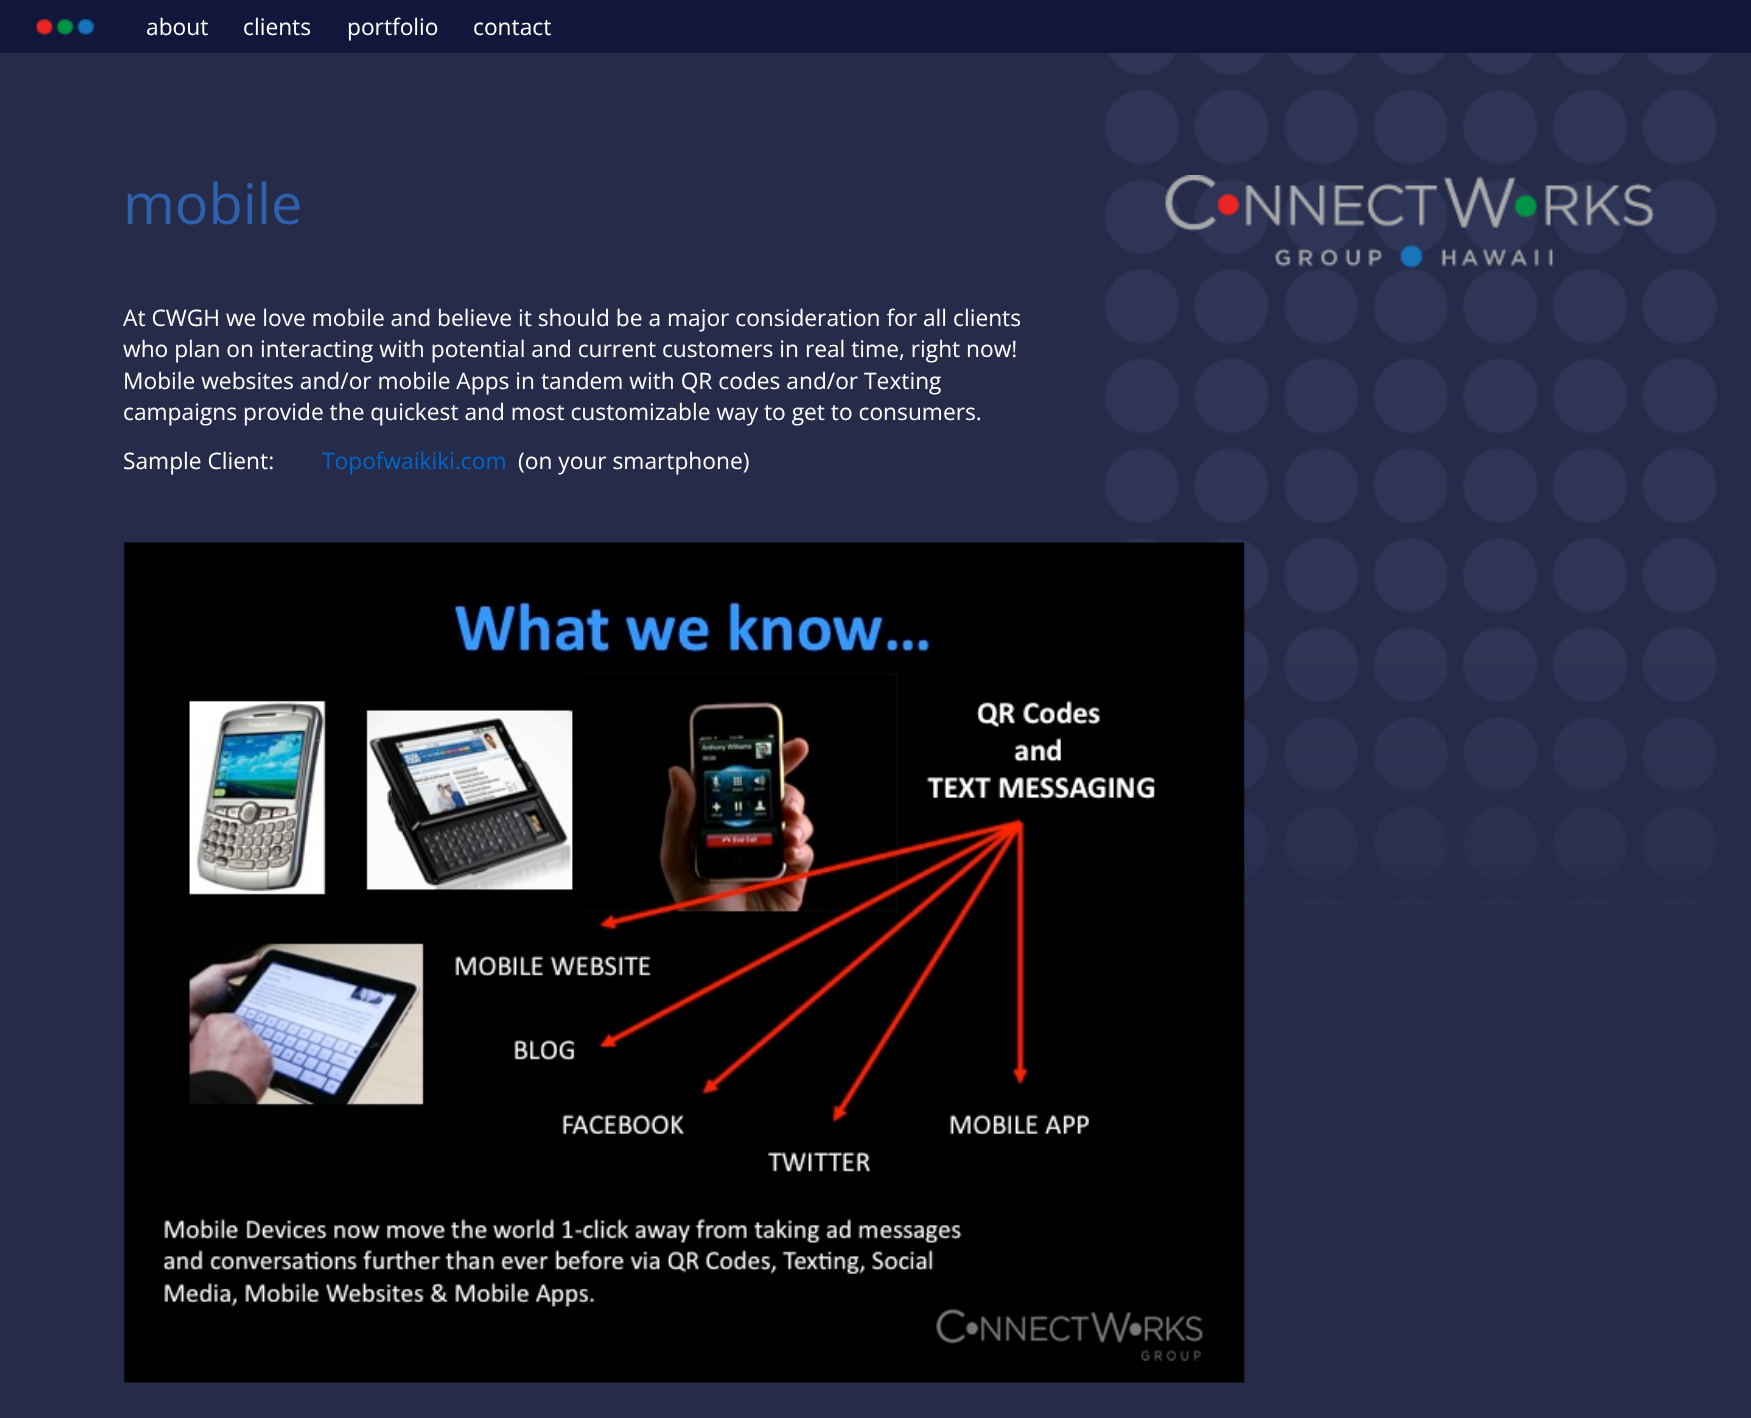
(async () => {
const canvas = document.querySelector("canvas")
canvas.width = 1751
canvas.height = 1418
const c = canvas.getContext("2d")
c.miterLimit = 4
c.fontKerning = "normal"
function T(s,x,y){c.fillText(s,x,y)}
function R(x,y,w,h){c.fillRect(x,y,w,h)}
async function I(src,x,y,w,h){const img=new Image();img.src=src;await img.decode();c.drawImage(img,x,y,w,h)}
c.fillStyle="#252b49"
R(0,0,1751,1418)
await I("1.png",1104,53,613,851)
c.fillStyle="#11173a"
R(0,0,1751,53)
await I("2.png",36,19,59,16)
c.font="22.75px Open Sans"
c.fillStyle="#fff"
T("about",146,35)
T("clients",243,35)
T("portfolio",347,35)
T("contact",473,35)
c.font="56px Open Sans"
c.fillStyle="#2e60ae"
T("mobile",123,224)
c.font="22.75px Open Sans"
c.fillStyle="#fff"
T("At CWGH we love mobile and believe it should be a major consideration for all clients",123,326)
T("who plan on interacting with potential and current customers in real time, right now!",123,357)
T("Mobile websites and/or mobile Apps in tandem with QR codes and/or Texting",123,389)
T("campaigns provide the quickest and most customizable way to get to consumers.",123,420)
T("Sample Client:",123,469)
c.fillStyle="#06c"
T("Topofwaikiki.com",322,469)
c.fillStyle="#fff"
T("(on your smartphone)",518,469)
await I("3.png",124,542,1121,841)
await I("4.png",1165,175,489,93)
})()
